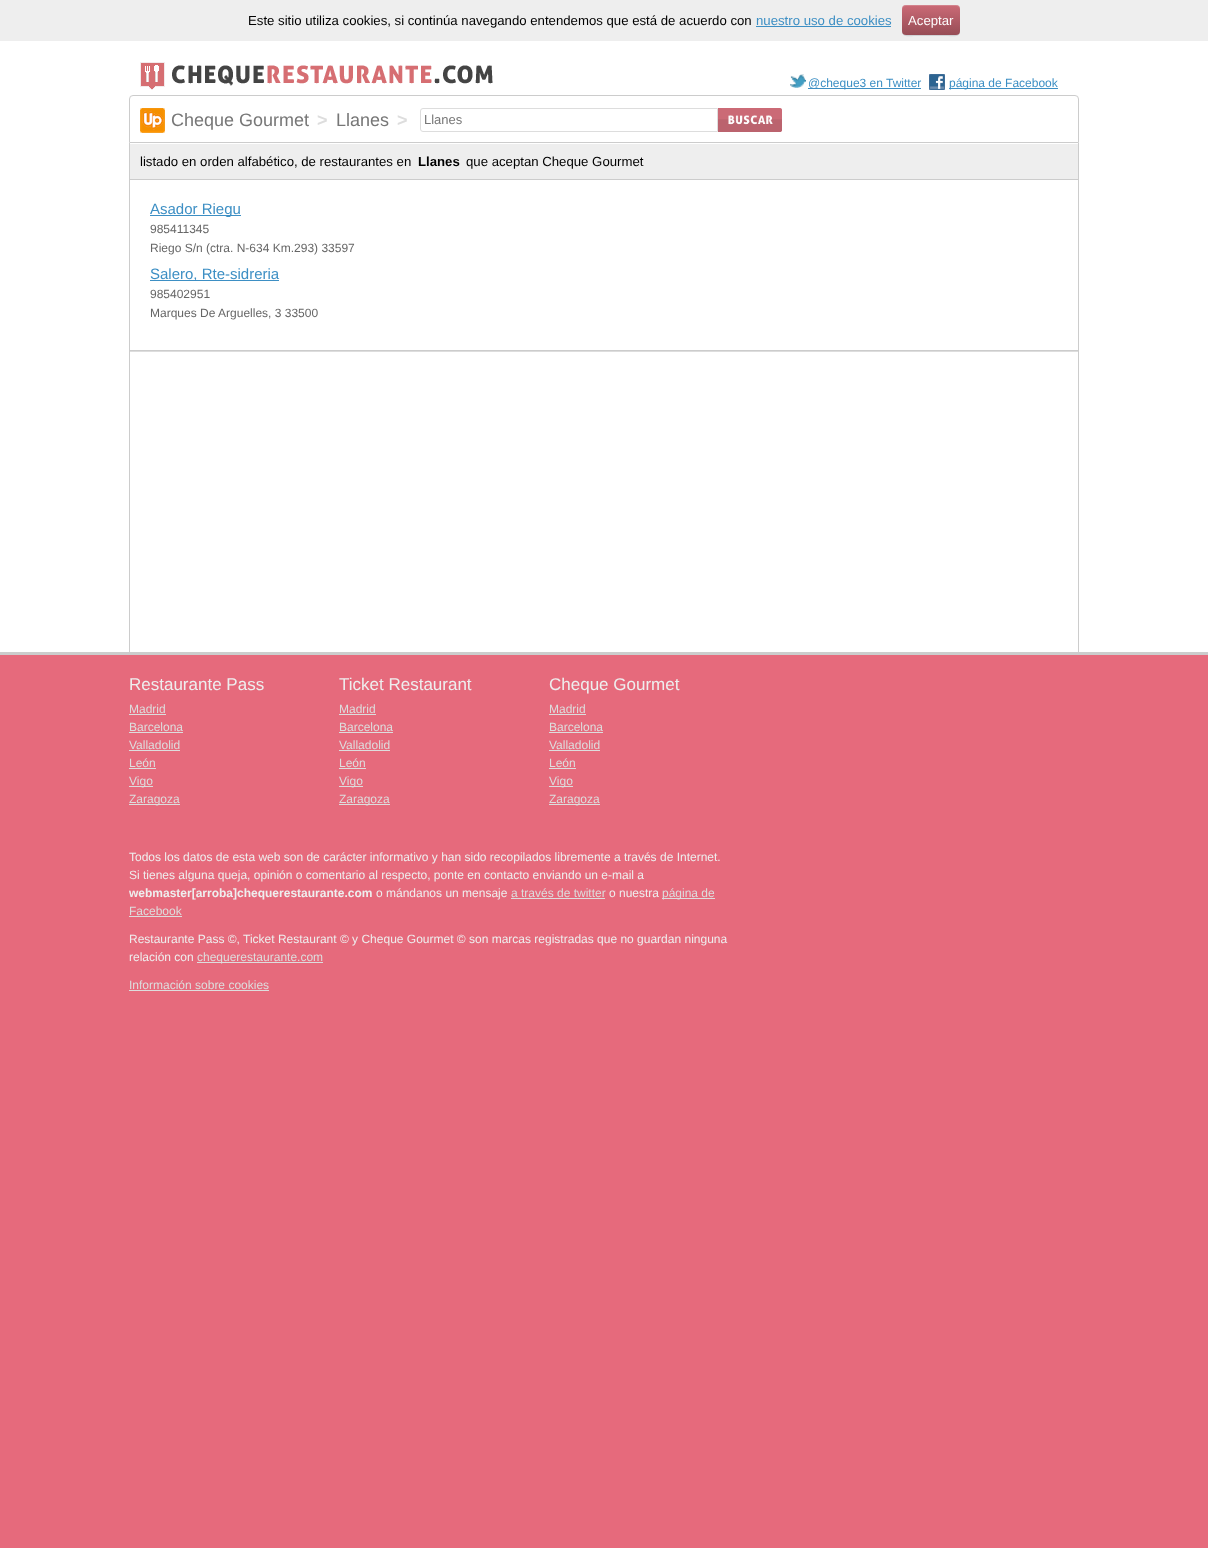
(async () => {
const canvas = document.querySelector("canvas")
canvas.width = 1208
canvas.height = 1548
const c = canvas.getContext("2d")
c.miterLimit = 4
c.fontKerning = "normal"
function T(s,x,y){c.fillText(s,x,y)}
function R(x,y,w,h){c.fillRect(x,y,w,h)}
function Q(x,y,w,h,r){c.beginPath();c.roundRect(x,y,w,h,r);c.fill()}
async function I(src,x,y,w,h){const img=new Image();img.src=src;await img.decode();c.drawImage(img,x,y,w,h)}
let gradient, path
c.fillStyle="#e66a7c"
R(0,0,1208,1548)
c.fillStyle="#fff"
R(0,41,1208,611)
c.fillStyle="#eee"
R(0,0,1208,41)
c.font="13.2px Liberation Sans"
c.fillStyle="#000"
T("Este sitio utiliza cookies, si continúa navegando entendemos que está de acuerdo con",248,25)
c.fillStyle="#3d8fc4"
T("nuestro uso de cookies",756,25)
R(756,26,135,1)
c.fillStyle="#d1d3d6"
path = new Path2D("M902 31c0 7 7 5 12 5h34c5 0 12 2 12-5c0 2-2 4-4 4h-50c-2 0-4-2-4-4z")
c.fill(path)
gradient = c.createLinearGradient(902,5,902,35)
gradient.addColorStop(0,"#cb6a76")
gradient.addColorStop(1,"#974d56")
c.fillStyle = gradient
Q(902,5,58,30,4)
c.fillStyle="#fdfcfc"
T("Aceptar",908,25)
c.fillStyle="#ffffff2b"
path = new Path2D("M906 6h50c2 0 4 2 4 4c0-7-7-5-12-5h-34c-5 0-12-2-12 5c0-2 2-4 4-4z")
c.fill(path)
await I("1.png",140,62,353,28)
await I("2.png",790,74,16,14)
c.fillStyle="#3d8fc4"
R(808,88,113,1)
c.font="12px Liberation Sans"
T("@cheque3 en Twitter",808,87)
await I("3.png",929,74,16,16)
R(949,88,109,1)
T("página de Facebook",949,87)
c.beginPath()
c.roundRect(129.5,95.5,949,47,[3.5,3.5,0,0])
c.strokeStyle="#ccc"
c.stroke()
await I("4.png",140,108,25,25)
c.font="18px Liberation Sans"
c.fillStyle="#777"
T("Cheque Gourmet",171,126)
c.font="bold 18px Liberation Sans"
c.fillStyle="#ddd"
T(">",317,126)
c.font="18px Liberation Sans"
c.fillStyle="#777"
T("Llanes",336,126)
c.font="bold 18px Liberation Sans"
c.fillStyle="#ddd"
T(">",397,126)
c.beginPath()
c.roundRect(420.5,108.5,297,23,[2.5,0,0,2.5])
c.strokeStyle="#ddd"
c.stroke()
c.font="13px Liberation Sans"
c.fillStyle="#777"
T("Llanes",424,124)
await I("5.png",718,108,64,24)
c.fillStyle="#eee"
R(130,144,948,35)
c.fillStyle="#ccc"
R(1078,143,1,36)
R(129,143,1,36)
c.font="13.2px Liberation Sans"
c.fillStyle="#000"
T("listado en orden alfabético, de restaurantes en",140,166)
c.font="bold 13.2px Liberation Sans"
T("Llanes",418,166)
c.font="13.2px Liberation Sans"
T("que aceptan Cheque Gourmet",466,166)
c.strokeStyle="#ccc"
c.strokeRect(129.5,179.5,949,171)
c.fillStyle="#3d8fc4"
R(150,215,91,1)
c.font="15px Liberation Sans"
T("Asador Riegu",150,214)
c.font="12px Liberation Sans"
c.fillStyle="#666"
T("985411345",150,233)
T("Riego S/n (ctra. N-634 Km.293) 33597",150,252)
c.fillStyle="#3d8fc4"
R(150,280,129,1)
c.font="15px Liberation Sans"
T("Salero, Rte-sidreria",150,279)
c.font="12px Liberation Sans"
c.fillStyle="#666"
T("985402951",150,298)
T("Marques De Arguelles, 3 33500",150,317)
c.fillStyle="#ddd"
R(129,351,950,1)
c.fillStyle="#ccc"
R(1078,351,1,301)
R(129,351,1,301)
R(0,652,1208,3)
c.font="17px Liberation Sans"
c.fillStyle="#eee"
T("Restaurante Pass",129,690)
c.font="12px Liberation Sans"
c.fillStyle="#ddd"
T("Madrid",129,713)
R(129,714,37,1)
T("Barcelona",129,731)
R(129,732,54,1)
T("Valladolid",129,749)
R(129,750,51,1)
T("León",129,767)
R(129,768,27,1)
R(129,786,24,1)
T("Vigo",129,785)
R(129,804,51,1)
T("Zaragoza",129,803)
c.font="17px Liberation Sans"
c.fillStyle="#eee"
T("Ticket Restaurant",339,690)
c.font="12px Liberation Sans"
c.fillStyle="#ddd"
T("Madrid",339,713)
R(339,714,37,1)
T("Barcelona",339,731)
R(339,732,54,1)
T("Valladolid",339,749)
R(339,750,51,1)
T("León",339,767)
R(339,768,27,1)
R(339,786,24,1)
T("Vigo",339,785)
R(339,804,51,1)
T("Zaragoza",339,803)
c.font="17px Liberation Sans"
c.fillStyle="#eee"
T("Cheque Gourmet",549,690)
c.font="12px Liberation Sans"
c.fillStyle="#ddd"
T("Madrid",549,713)
R(549,714,37,1)
T("Barcelona",549,731)
R(549,732,54,1)
T("Valladolid",549,749)
R(549,750,51,1)
T("León",549,767)
R(549,768,27,1)
R(549,786,24,1)
T("Vigo",549,785)
R(549,804,51,1)
T("Zaragoza",549,803)
c.fillStyle="#eee"
T("Todos los datos de esta web son de carácter informativo y han sido recopilados libremente a través de Internet.",129,861)
T("Si tienes alguna queja, opinión o comentario al respecto, ponte en contacto enviando un e-mail a",129,879)
c.font="bold 12px Liberation Sans"
T("webmaster[arroba]chequerestaurante.com",129,897)
c.font="12px Liberation Sans"
T("o mándanos un mensaje",376,897)
c.fillStyle="#ddd"
T("a través de twitter",511,897)
R(511,898,94,1)
c.fillStyle="#eee"
T("o nuestra",609,897)
c.fillStyle="#ddd"
R(662,898,53,1)
T("página de",662,897)
T("Facebook",129,915)
R(129,916,53,1)
c.fillStyle="#eee"
T("Restaurante Pass ©, Ticket Restaurant © y Cheque Gourmet © son marcas registradas que no guardan ninguna",129,943)
T("relación con",129,961)
c.fillStyle="#ddd"
R(197,962,126,1)
T("chequerestaurante.com",197,961)
T("Información sobre cookies",129,989)
R(129,990,140,1)
})()
